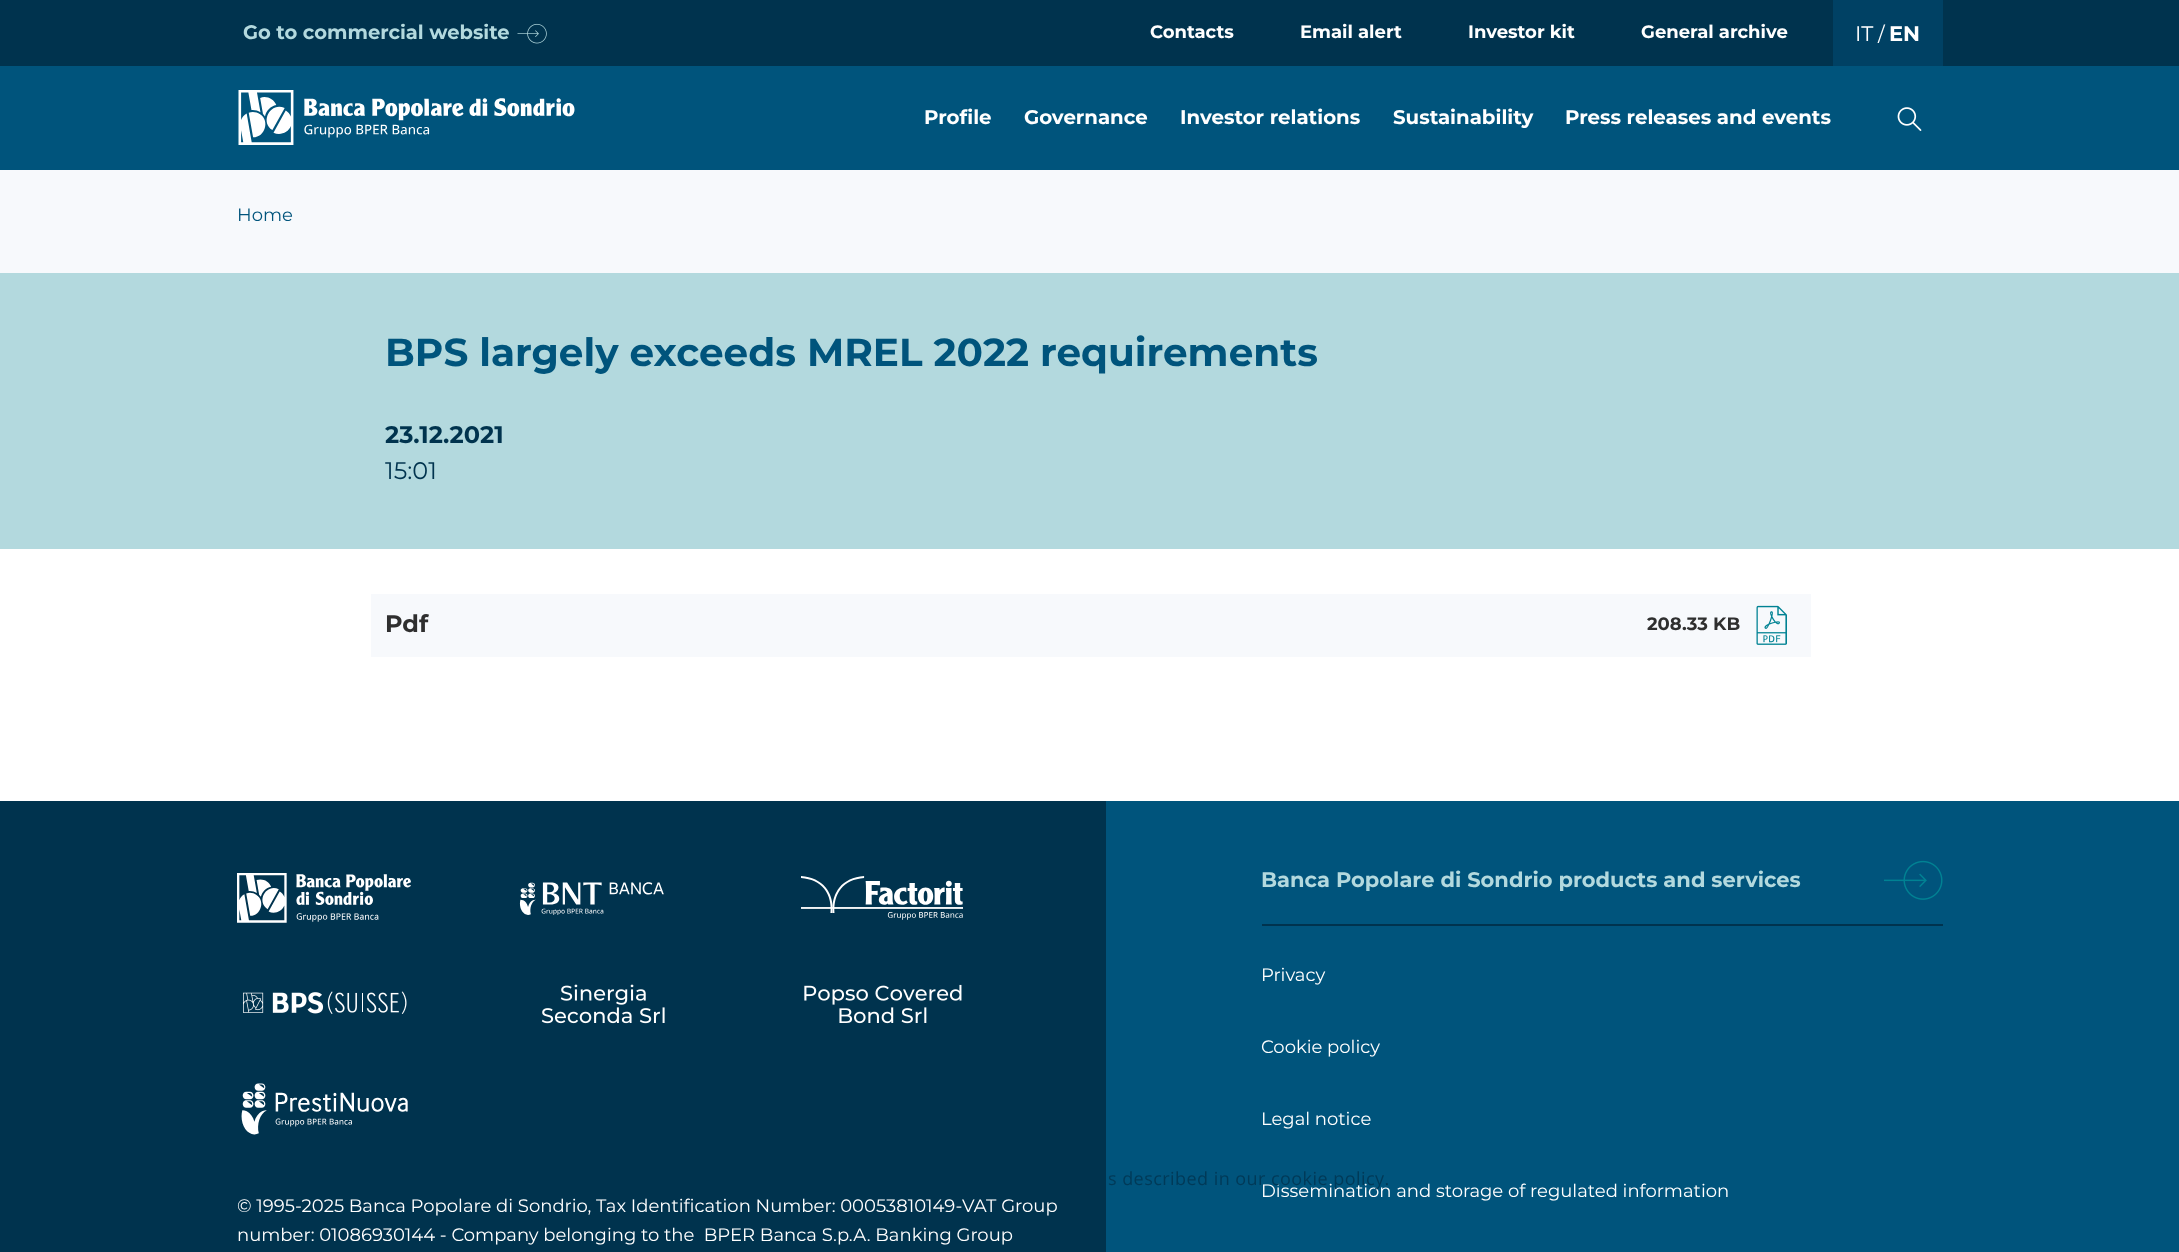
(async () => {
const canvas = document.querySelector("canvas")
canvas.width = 2179
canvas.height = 1252
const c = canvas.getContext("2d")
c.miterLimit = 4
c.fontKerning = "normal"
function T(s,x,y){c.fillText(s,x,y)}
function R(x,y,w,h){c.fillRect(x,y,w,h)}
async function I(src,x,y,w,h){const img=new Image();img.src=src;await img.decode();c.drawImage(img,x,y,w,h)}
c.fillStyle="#fff"
R(0,0,2179,1252)
c.fillStyle="#00334e"
R(0,0,2179,66)
c.font="bold 19.5px Montserrat"
c.fillStyle="#b3d9de"
T("Go to commercial website",243,39)
await I("1.png",517,23,30,21)
c.font="bold 18px Montserrat"
c.fillStyle="#fff"
T("Contacts",1150,38)
T("Email alert",1300,38)
T("Investor kit",1468,38)
T("General archive",1641,38)
c.fillStyle="#004164"
R(1833,0,110,66)
c.font="21px Montserrat"
c.fillStyle="#fff"
T("IT",1855,41)
c.font="19.5px Montserrat"
T("/",1878,41)
c.font="bold 21px Montserrat"
T("EN",1889,41)
c.fillStyle="#00547c"
R(0,66,2179,104)
await I("2.png",238,90,337,55)
c.font="bold 19.75px Montserrat"
c.fillStyle="#fff"
T("Profile",924,124)
T("Governance",1024,124)
T("Investor relations",1180,124)
T("Sustainability",1393,124)
T("Press releases and events",1565,124)
await I("3.png",1897,107,25,24)
c.fillStyle="#f7f9fc"
R(0,170,2179,103)
c.font="18px Montserrat"
c.fillStyle="#00547c"
T("Home",237,221)
c.fillStyle="#b3d9de"
R(0,273,2179,276)
c.font="bold 39px Montserrat"
c.fillStyle="#00547c"
T("BPS largely exceeds MREL 2022 requirements",385,366)
c.font="bold 24px Montserrat"
c.fillStyle="#00334e"
T("23.12.2021",385,443)
c.font="24px Montserrat"
T("15:01",385,479)
c.fillStyle="#f7f9fc"
R(371,594,1440,63)
c.font="bold 24px Montserrat"
c.fillStyle="#2f2f2f"
T("Pdf",385,632)
c.font="bold 18px Montserrat"
T("208.33 KB",1647,630)
await I("4.png",1756,605,31,40)
c.fillStyle="#00334e"
R(0,801,1106,451)
c.fillStyle="#00547c"
R(1106,801,1073,451)
c.fillStyle="#00334e"
R(1262,924,681,2)
c.font="bold 21px Montserrat"
c.fillStyle="#b3d9de"
T("Banca Popolare di Sondrio products and services",1261,887)
await I("5.png",1884,860,59,40)
c.font="18px Montserrat"
c.fillStyle="#fff"
T("Privacy",1261,981)
T("Cookie policy",1261,1053)
T("Legal notice",1261,1125)
T("Dissemination and storage of regulated information",1261,1197)
await I("6.png",237,873,174,50)
await I("7.png",519,882,145,33)
await I("8.png",801,876,162,44)
await I("9.png",243,991,164,23)
await I("10.png",541,984,124,40)
await I("11.png",804,984,158,40)
await I("12.png",241,1083,167,52)
T("© 1995-2025 Banca Popolare di Sondrio, Tax Identification Number: 00053810149-VAT Group",237,1212)
T("number: 01086930144 - Company belonging to the  BPER Banca S.p.A. Banking Group",237,1241)
c.letterSpacing="0.45px"
c.font="18px Open Sans"
c.fillStyle="#003a58"
T("s described in our cookie policy.",1108,1185)
})()
